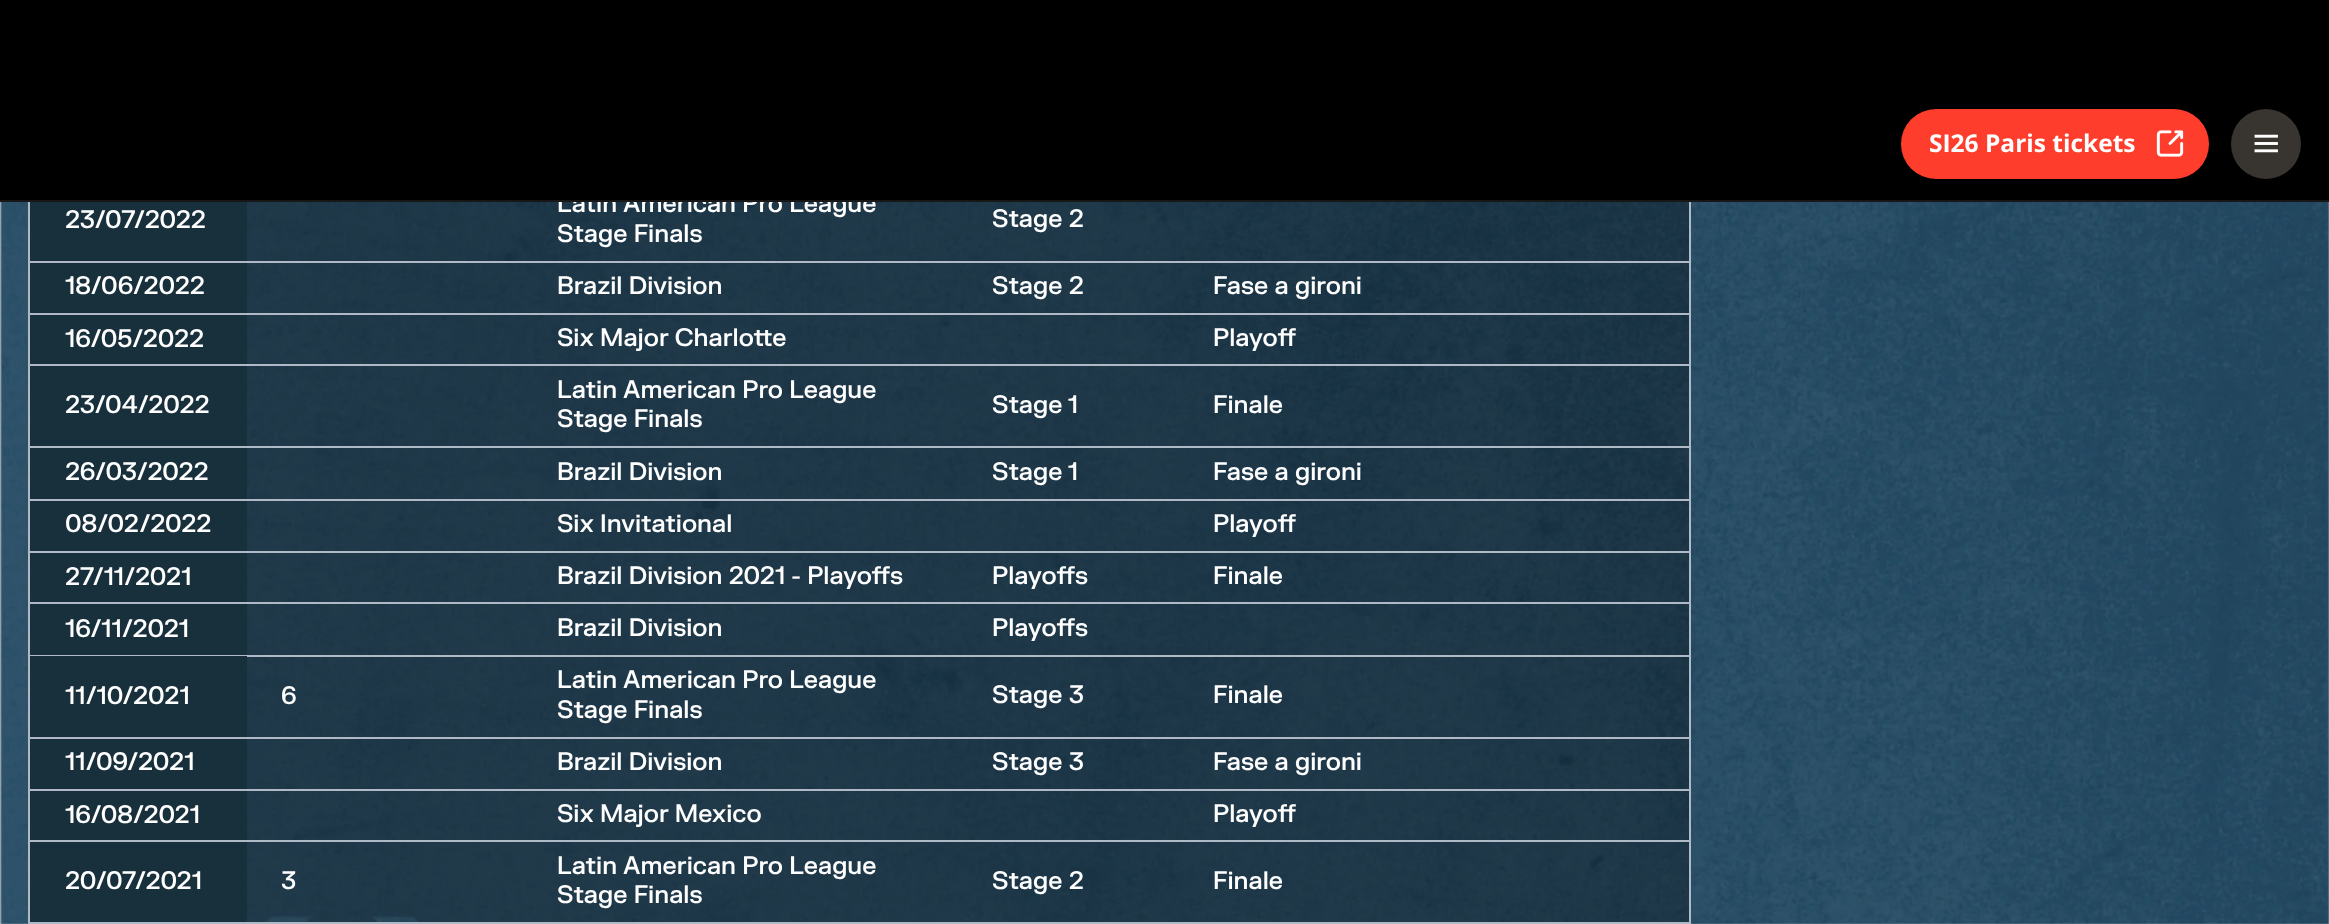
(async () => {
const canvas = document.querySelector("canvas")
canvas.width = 2329
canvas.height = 924
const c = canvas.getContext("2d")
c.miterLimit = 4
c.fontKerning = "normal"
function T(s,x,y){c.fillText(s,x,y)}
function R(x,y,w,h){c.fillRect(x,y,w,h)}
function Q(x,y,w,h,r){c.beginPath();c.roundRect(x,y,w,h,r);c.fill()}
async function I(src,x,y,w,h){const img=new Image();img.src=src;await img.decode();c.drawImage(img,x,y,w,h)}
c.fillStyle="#fff"
R(0,0,2329,924)
await I("1.png",0,202,2329,722)
c.fillStyle="#0000004d"
R(247,202,1442,720)
c.strokeStyle="#b0bac6"
c.lineWidth=2
c.strokeRect(29,-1,1661,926)
c.font="500 24.5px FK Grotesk"
c.fillStyle="#fefefe"
T("Latin American Pro League",557,212)
c.fillStyle="#000"
R(0,0,2329,200)
c.fillStyle="#181717"
R(0,200,2329,2)
c.fillStyle="#ff3d2c"
Q(1901,109,308,70,35)
c.font="bold 24.5px Open Sans"
c.fillStyle="#fefefe"
T("SI26 Paris tickets",1929,152)
await I("2.png",2156,130,28,27)
c.fillStyle="#383530"
c.beginPath()
c.arc(2266,144,35,0,7)
c.fill()
await I("3.png",2254,134,24,19)
c.fillStyle="#182f3c"
R(30,202,217,59)
c.font="500 24.5px FK Grotesk"
c.fillStyle="#fefefe"
T("23/07/2022",65,228)
T("Stage Finals",557,242)
T("Stage 2",992,227)
c.fillStyle="#b0bac6"
R(30,261,1659,2)
c.fillStyle="#182f3c"
R(30,263,217,50)
c.fillStyle="#fefefe"
T("18/06/2022",65,294)
T("Brazil Division",557,294)
T("Stage 2",992,294)
T("Fase a gironi",1213,294)
c.fillStyle="#b0bac6"
R(30,313,1659,2)
c.fillStyle="#182f3c"
R(30,315,217,49)
c.fillStyle="#fefefe"
T("16/05/2022",65,347)
T("Six Major Charlotte",557,346)
T("Playoff",1213,346)
c.fillStyle="#b0bac6"
R(30,364,1659,2)
c.fillStyle="#182f3c"
R(30,366,217,80)
c.fillStyle="#fefefe"
T("23/04/2022",65,413)
T("Latin American Pro League",557,398)
T("Stage Finals",557,427)
T("Stage 1",992,413)
T("Finale",1213,413)
c.fillStyle="#b0bac6"
R(30,446,1659,2)
c.fillStyle="#182f3c"
R(30,448,217,51)
c.fillStyle="#fefefe"
T("26/03/2022",65,480)
T("Brazil Division",557,480)
T("Stage 1",992,480)
T("Fase a gironi",1213,480)
c.fillStyle="#b0bac6"
R(30,499,1659,2)
c.fillStyle="#182f3c"
R(30,501,217,50)
c.fillStyle="#fefefe"
T("08/02/2022",65,532)
T("Six Invitational",557,532)
T("Playoff",1213,532)
c.fillStyle="#b0bac6"
R(30,551,1659,2)
c.fillStyle="#182f3c"
R(30,553,217,49)
c.fillStyle="#fefefe"
T("27/11/2021",65,585)
T("Brazil Division 2021 - Playoffs",557,584)
T("Playoffs",992,584)
T("Finale",1213,584)
c.fillStyle="#b0bac6"
R(30,602,1659,2)
c.fillStyle="#182f3c"
R(30,604,217,51)
c.fillStyle="#b0bac6"
R(30,655,217,1)
c.fillStyle="#fefefe"
T("16/11/2021",65,637)
T("Brazil Division",557,636)
T("Playoffs",992,636)
c.fillStyle="#b0bac6"
R(247,655,1442,2)
c.fillStyle="#182f3c"
R(30,656,217,81)
c.fillStyle="#fefefe"
T("11/10/2021",65,704)
c.fillStyle="#b0bac6"
R(30,737,1659,2)
c.fillStyle="#fefefe"
T("6",281,704)
T("Latin American Pro League",557,688)
T("Stage Finals",557,718)
T("Stage 3",992,703)
T("Finale",1213,703)
c.fillStyle="#182f3c"
R(30,739,217,50)
c.fillStyle="#fefefe"
T("11/09/2021",65,770)
T("Brazil Division",557,770)
T("Stage 3",992,770)
T("Fase a gironi",1213,770)
c.fillStyle="#b0bac6"
R(30,789,1659,2)
c.fillStyle="#182f3c"
R(30,791,217,49)
c.fillStyle="#fefefe"
T("16/08/2021",65,823)
T("Six Major Mexico",557,822)
T("Playoff",1213,822)
c.fillStyle="#b0bac6"
R(30,840,1659,2)
c.fillStyle="#182f3c"
R(30,842,217,80)
c.fillStyle="#fefefe"
T("20/07/2021",65,889)
c.fillStyle="#b0bac6"
R(30,922,1659,2)
c.fillStyle="#fefefe"
T("3",281,889)
T("Latin American Pro League",557,874)
T("Stage Finals",557,903)
T("Stage 2",992,889)
T("Finale",1213,889)
})()
